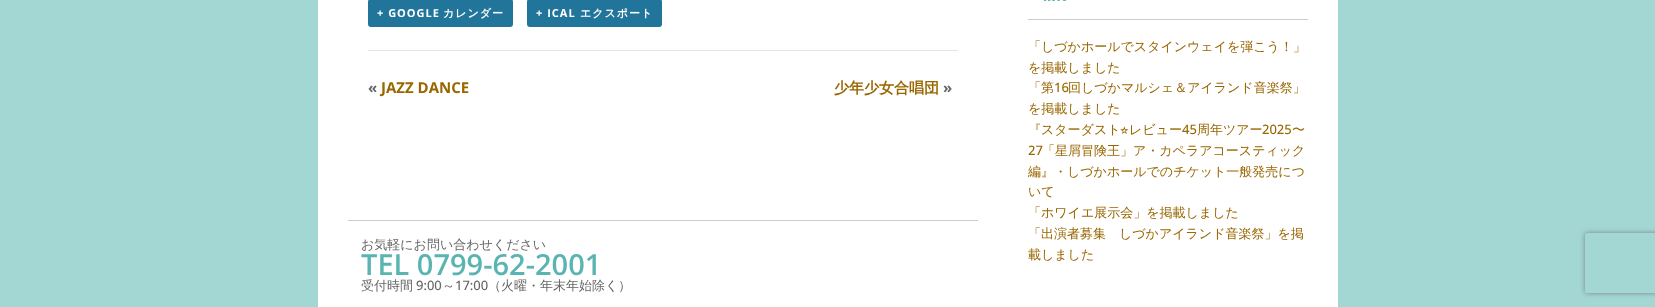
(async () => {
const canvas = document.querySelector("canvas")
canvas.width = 1655
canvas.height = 307
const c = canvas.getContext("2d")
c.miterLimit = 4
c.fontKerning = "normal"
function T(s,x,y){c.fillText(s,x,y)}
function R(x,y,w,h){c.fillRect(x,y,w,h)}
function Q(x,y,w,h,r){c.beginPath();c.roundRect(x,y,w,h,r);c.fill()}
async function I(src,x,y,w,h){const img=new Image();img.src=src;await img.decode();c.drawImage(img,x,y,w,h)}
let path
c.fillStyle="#a2d7d4"
R(0,0,1655,307)
c.fillStyle="#fff"
R(318,0,1020,307)
c.fillStyle="#21759b"
Q(368,-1,145,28,3)
c.letterSpacing="1px"
c.font="bold 11px Open Sans"
c.fillStyle="#fff"
T("+ GOOGLE",377,17)
c.font="bold 11px WenQuanYi Zen Hei"
T("カレンダー",443,17)
c.fillStyle="#21759b"
Q(527,-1,135,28,3)
c.font="bold 11px Open Sans"
c.fillStyle="#fff"
T("+ ICAL",536,17)
c.font="bold 11px WenQuanYi Zen Hei"
T("エクスポート",580,17)
c.fillStyle="#e5e5e5"
R(368,50,590,1)
c.letterSpacing="0px"
c.font="bold 15px Open Sans"
c.fillStyle="#666"
T("«",368,93)
c.fillStyle="#960"
T("JAZZ DANCE",381,93)
c.font="bold 15px WenQuanYi Zen Hei"
T("少年少女合唱団",834,93)
c.font="bold 15px Open Sans"
c.fillStyle="#666"
T("»",943,93)
c.fillStyle="#ccc"
R(348,220,630,1)
c.font="500 13px WenQuanYi Zen Hei"
c.fillStyle="#666"
T("お気軽にお問い合わせください",361,249)
c.font="600 29px Open Sans"
c.fillStyle="#5ab5b2"
T("TEL 0799-62-2001",361,275)
c.font="500 13px WenQuanYi Zen Hei"
c.fillStyle="#666"
T("受付時間",361,290)
c.font="500 13px Open Sans"
T("9:00",416,290)
c.font="500 13px WenQuanYi Zen Hei"
T("～",442,290)
c.font="500 13px Open Sans"
T("17:00",455,290)
c.font="500 13px WenQuanYi Zen Hei"
T("（火曜・年末年始除く）",488,290)
await I("1.png",1044,0,22,1)
c.fillStyle="#ccc"
R(1028,19,280,1)
c.fillStyle="#960"
T("「しづかホールでスタインウェイを弾こう！」",1028,51)
T("を掲載しました",1028,72)
T("「第",1028,92)
c.font="500 13px Open Sans"
T("16",1054,92)
c.font="500 13px WenQuanYi Zen Hei"
T("回しづかマルシェ＆アイランド音楽祭」",1068,92)
T("を掲載しました",1028,113)
T("『スターダスト",1028,134)
c.font="13px FreeSans"
T("⭐︎",1120,134)
c.font="500 13px WenQuanYi Zen Hei"
T("レビュー",1129,134)
c.font="500 13px Open Sans"
T("45",1182,134)
c.font="500 13px WenQuanYi Zen Hei"
T("周年ツアー",1197,134)
c.font="500 13px Open Sans"
T("2025",1262,134)
c.font="500 13px WenQuanYi Zen Hei"
T("〜",1292,134)
c.font="500 13px Open Sans"
T("27",1028,155)
c.font="500 13px WenQuanYi Zen Hei"
T("「星屑冒険王」ア・カペラアコースティック",1042,155)
T("編』・しづかホールでのチケット一般発売につ",1028,176)
T("いて",1028,196)
T("「ホワイエ展示会」を掲載しました",1028,217)
T("「出演者募集　しづかアイランド音楽祭」を掲",1028,238)
T("載しました",1028,259)
c.save()
path = new Path2D("M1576 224h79v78h-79zm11 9h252c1 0 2 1 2 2v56c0 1-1 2-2 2h-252c-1 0-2-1-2-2v-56c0-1 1-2 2-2z")
c.clip(path,"evenodd")
c.fillStyle="#808080"
c.filter="blur(2.5px)"
c.beginPath()
c.roundRect(1585,233,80,60,2)
c.fill()
c.filter="none"
c.restore()
})()
